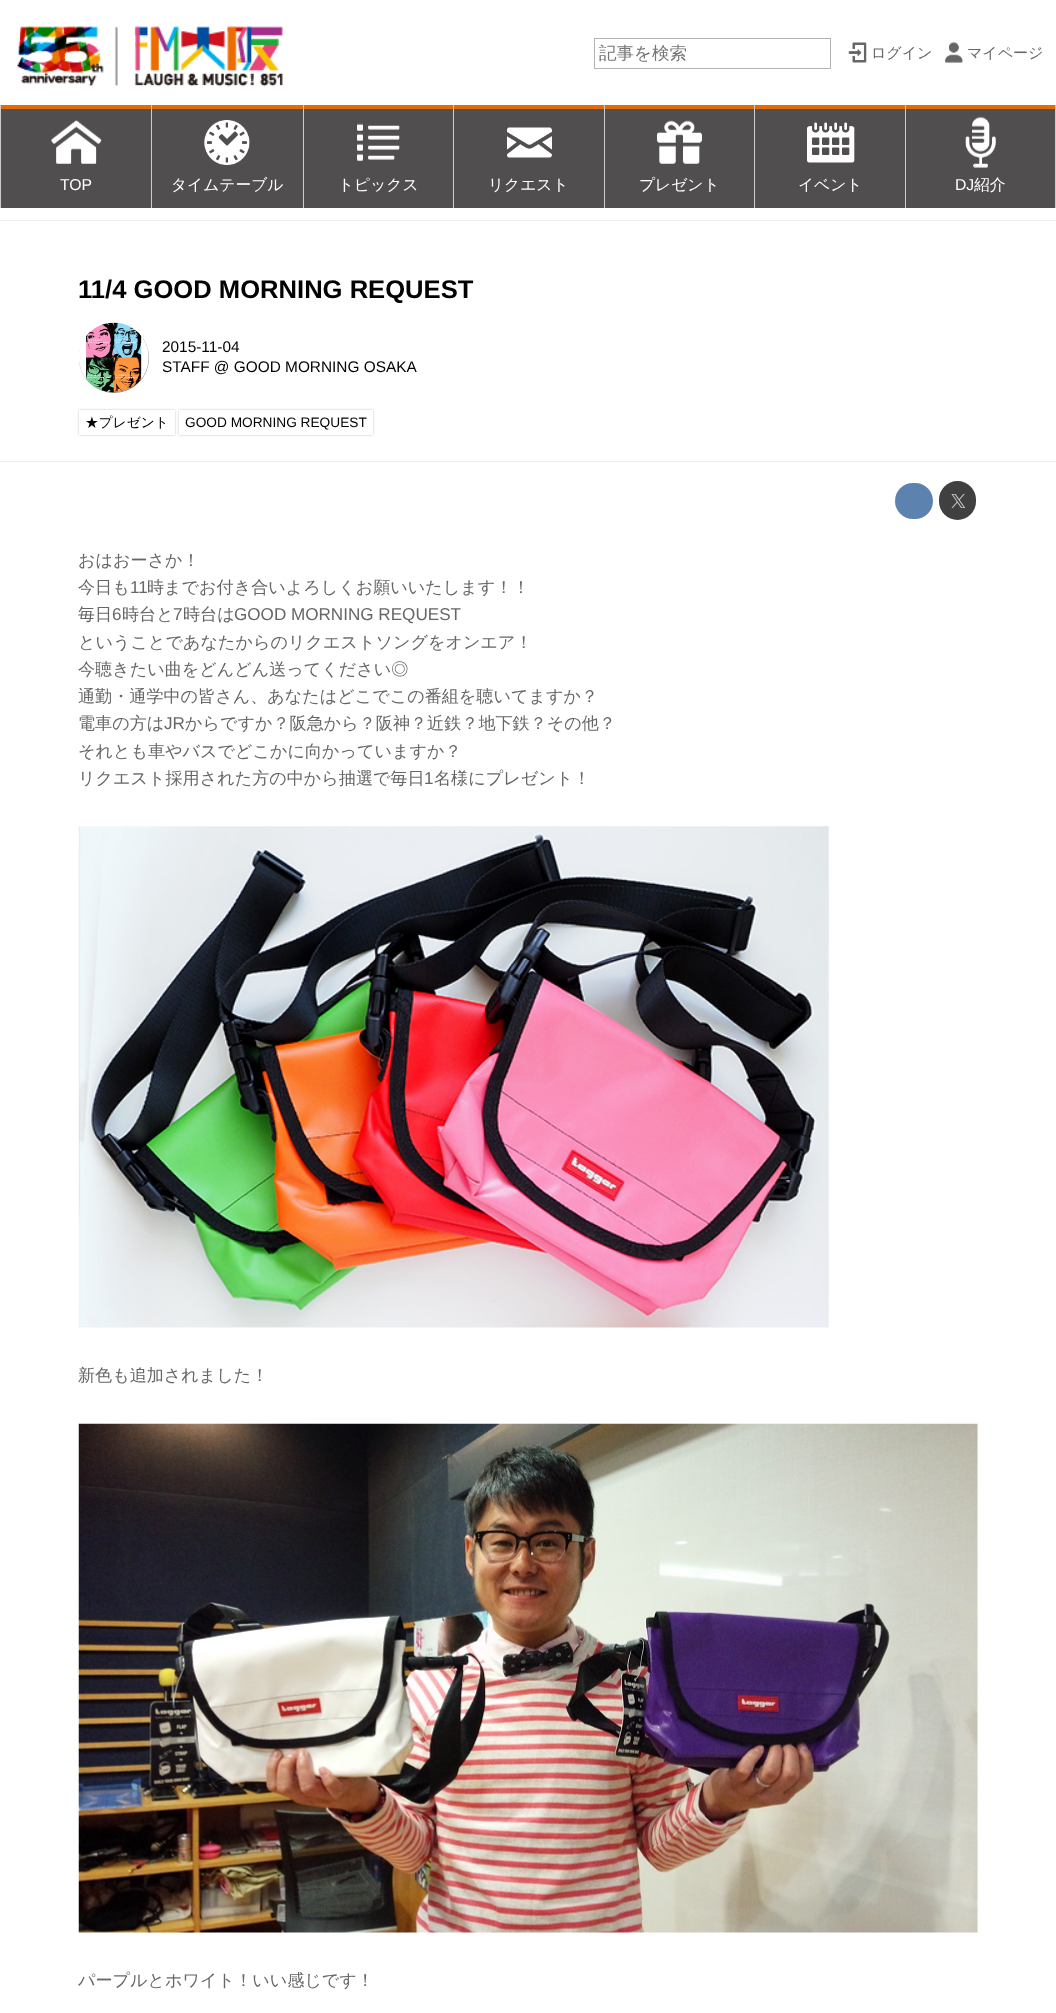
(async () => {
const canvas = document.querySelector("canvas")
canvas.width = 1056
canvas.height = 2013
const c = canvas.getContext("2d")
c.miterLimit = 4
c.fontKerning = "normal"
function T(s,x,y){c.fillText(s,x,y)}
function R(x,y,w,h){c.fillRect(x,y,w,h)}
function Q(x,y,w,h,r){c.beginPath();c.roundRect(x,y,w,h,r);c.fill()}
async function I(src,x,y,w,h){const img=new Image();img.src=src;await img.decode();c.drawImage(img,x,y,w,h)}
let path
c.fillStyle="#fff"
R(0,0,1056,2013)
await I("1.png",17,26,266,61)
c.strokeStyle="#b3b3b3"
c.strokeRect(594.5,38.5,236,30)
c.font="500 17.5px WenQuanYi Zen Hei"
c.fillStyle="#757575"
T("記事を検索",599,59)
await I("2.png",848,42,19,21)
c.font="500 15px WenQuanYi Zen Hei"
c.fillStyle="#666"
T("ログイン",871,58)
await I("3.png",945,41,18,22)
T("マイページ",967,58)
c.fillStyle="#514e4f"
R(1,109,1054,99)
await I("4.png",51,120,51,44)
c.fillStyle="#e46b04"
R(0,105,1056,4)
c.fillStyle="#ccc"
R(0,105,1,103)
c.font="15.75px Liberation Sans"
c.fillStyle="#fff"
T("TOP",60,190)
await I("5.png",204,120,46,45)
c.fillStyle="#ccc"
R(151,105,1,103)
c.font="500 15.75px WenQuanYi Zen Hei"
c.fillStyle="#fff"
T("タイムテーブル",171,190)
await I("6.png",357,123,43,38)
c.fillStyle="#ccc"
R(303,105,1,103)
c.fillStyle="#fff"
T("トピックス",338,190)
await I("7.png",507,127,45,31)
c.fillStyle="#ccc"
R(453,105,1,103)
c.fillStyle="#fff"
T("リクエスト",488,190)
await I("8.png",657,120,45,44)
c.fillStyle="#ccc"
R(604,105,1,103)
c.fillStyle="#fff"
T("プレゼント",639,190)
await I("9.png",807,122,48,41)
c.fillStyle="#ccc"
R(754,105,1,103)
c.fillStyle="#fff"
T("イベント",798,190)
await I("10.png",965,116,31,52)
c.fillStyle="#ccc"
R(1055,105,1,103)
R(905,105,1,103)
c.font="15.75px Liberation Sans"
c.fillStyle="#fff"
T("DJ",955,190)
c.font="500 15.75px WenQuanYi Zen Hei"
T("紹介",974,190)
c.fillStyle="#eee"
R(0,220,1056,1)
R(0,461,1056,1)
c.font="bold 25.6px Liberation Sans"
c.fillStyle="#000"
T("11/4 GOOD MORNING REQUEST",78,298)
c.fillStyle="#888"
c.beginPath()
c.arc(114,358,35,0,7)
c.fill()
await I("11.png",79,322,70,71)
c.font="15.4px Liberation Sans"
c.fillStyle="#000"
T("2015-11-04",162,352)
T("STAFF @ GOOD MORNING OSAKA",162,372)
c.save()
path = new Path2D("M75 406h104v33h-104zm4 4h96v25h-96z")
c.clip(path,"evenodd")
c.fillStyle="#00000040"
c.filter="blur(1px)"
c.beginPath()
c.rect(79,410,96,25)
c.fill()
c.filter="none"
c.restore()
c.font="500 13.7px WenQuanYi Zen Hei"
T("★プレゼント",85,427)
c.save()
path = new Path2D("M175 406h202v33h-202zm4 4h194v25h-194z")
c.clip(path,"evenodd")
c.fillStyle="#00000040"
c.filter="blur(1px)"
c.beginPath()
c.rect(179,410,194,25)
c.fill()
c.filter="none"
c.restore()
c.strokeStyle="#ffffff80"
c.strokeRect(179.5,410.5,193,24)
c.font="13.7px Liberation Sans"
T("GOOD MORNING REQUEST",185,427)
c.fillStyle="#5c83b0"
Q(895,483,38,36,18)
c.fillStyle="#404040"
Q(939,481,37,39,18.5)
await I("12.png",951,494,14,14)
c.font="500 17.1px WenQuanYi Zen Hei"
c.fillStyle="#666"
T("おはおーさか！",78,566)
T("今日も",78,593)
c.font="17.1px Liberation Sans"
T("11",130,593)
c.font="500 17.1px WenQuanYi Zen Hei"
T("時までお付き合いよろしくお願いいたします！！",147,593)
T("毎日",78,620)
c.font="17.1px Liberation Sans"
T("6",112,620)
c.font="500 17.1px WenQuanYi Zen Hei"
T("時台と",122,620)
c.font="17.1px Liberation Sans"
T("7",173,620)
c.font="500 17.1px WenQuanYi Zen Hei"
T("時台は",183,620)
c.font="17.1px Liberation Sans"
T("GOOD MORNING REQUEST",234,620)
c.font="500 17.1px WenQuanYi Zen Hei"
T("ということであなたからのリクエストソングをオンエア！",78,648)
T("今聴きたい曲をどんどん送ってください◎",78,675)
T("通勤・通学中の皆さん、あなたはどこでこの番組を聴いてますか？",78,702)
T("電車の方は",78,729)
c.font="17.1px Liberation Sans"
T("JR",164,729)
c.font="500 17.1px WenQuanYi Zen Hei"
T("からですか？阪急から？阪神？近鉄？地下鉄？その他？",185,729)
T("それとも車やバスでどこかに向かっていますか？",78,757)
T("リクエスト採用された方の中から抽選で毎日",78,784)
c.font="17.1px Liberation Sans"
T("1",424,784)
c.font="500 17.1px WenQuanYi Zen Hei"
T("名様にプレゼント！",434,784)
await I("13.png",78,826,751,502)
T("新色も追加されました！",78,1381)
await I("14.png",78,1423,900,510)
T("パープルとホワイト！いい感じです！",78,1986)
})()
